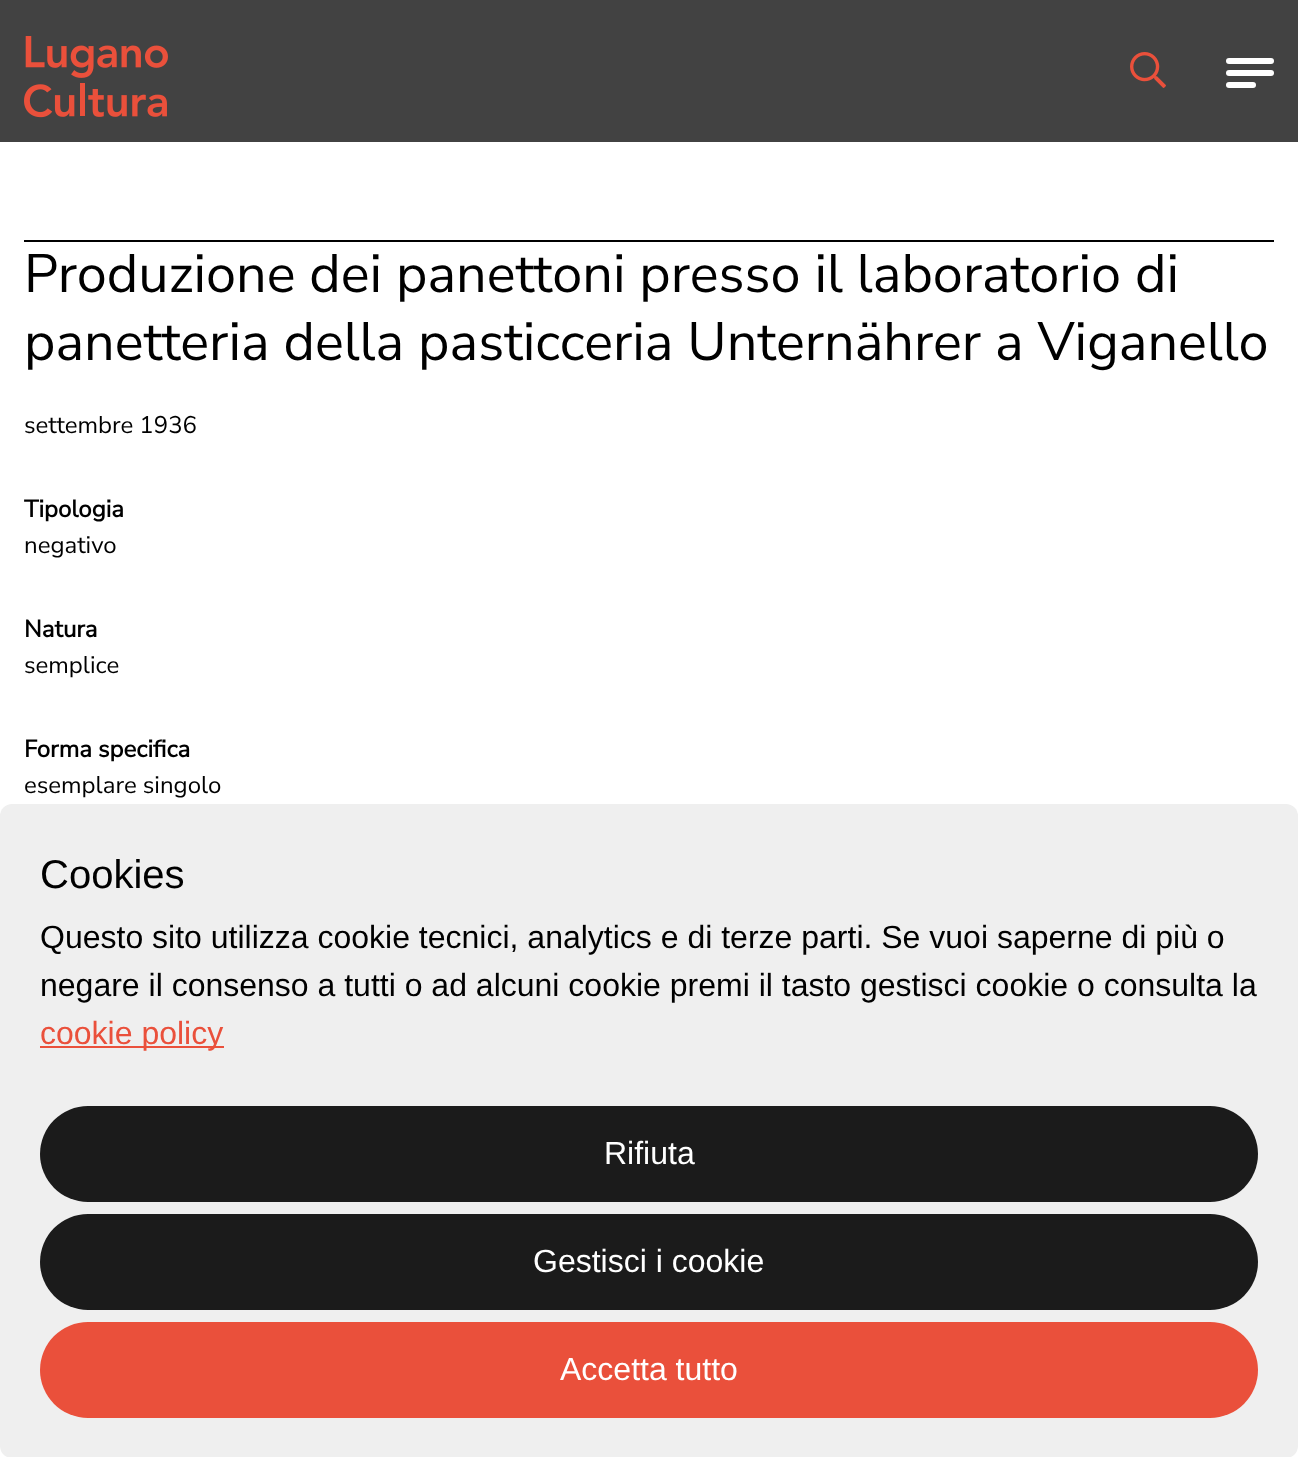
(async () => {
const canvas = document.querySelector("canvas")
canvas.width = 1298
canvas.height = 1457
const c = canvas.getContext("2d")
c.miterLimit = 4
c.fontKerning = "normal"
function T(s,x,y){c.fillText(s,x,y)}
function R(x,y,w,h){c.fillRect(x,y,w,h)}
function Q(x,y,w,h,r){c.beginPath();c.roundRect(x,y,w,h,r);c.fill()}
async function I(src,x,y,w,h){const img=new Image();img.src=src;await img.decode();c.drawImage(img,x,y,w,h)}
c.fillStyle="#fff"
R(0,0,1298,1457)
c.fillStyle="#424242"
R(0,0,1298,142)
await I("1.png",24,36,144,82)
await I("2.png",1130,52,36,36)
c.fillStyle="#fff"
Q(1226,58,48,6,3)
Q(1226,70,48,6,3)
Q(1226,82,30,6,3)
c.fillStyle="#000"
R(24,240,1250,2)
c.font="200 54px Nunito Sans"
T("Produzione dei panettoni presso il laboratorio di",24,292)
T("panetteria della pasticceria Unternährer a Viganello",24,360)
c.font="200 24px Nunito Sans"
T("settembre 1936",24,433)
c.font="bold 24px Nunito Sans"
T("Tipologia",24,517)
c.font="200 24px Nunito Sans"
T("negativo",24,553)
c.font="bold 24px Nunito Sans"
T("Natura",24,637)
c.font="200 24px Nunito Sans"
T("semplice",24,673)
c.font="bold 24px Nunito Sans"
T("Forma specifica",24,757)
c.font="200 24px Nunito Sans"
T("esemplare singolo",24,793)
c.fillStyle="#efefef"
Q(0,804,1298,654,12)
c.font="40px Liberation Sans"
c.fillStyle="#000"
T("Cookies",40,888)
c.font="32px Liberation Sans"
T("Questo sito utilizza cookie tecnici, analytics e di terze parti. Se vuoi saperne di più o",40,948)
T("negare il consenso a tutti o ad alcuni cookie premi il tasto gestisci cookie o consulta la",40,996)
c.fillStyle="#ea503b"
R(40,1046,184,2)
T("cookie policy",40,1044)
c.fillStyle="#1b1b1b"
Q(40,1106,1218,96,48)
c.fillStyle="#fff"
T("Rifiuta",604,1164)
c.fillStyle="#1b1b1b"
Q(40,1214,1218,96,48)
c.fillStyle="#fff"
T("Gestisci i cookie",533,1272)
c.fillStyle="#ea503b"
Q(40,1322,1218,96,48)
c.fillStyle="#fff"
T("Accetta tutto",560,1380)
})()
